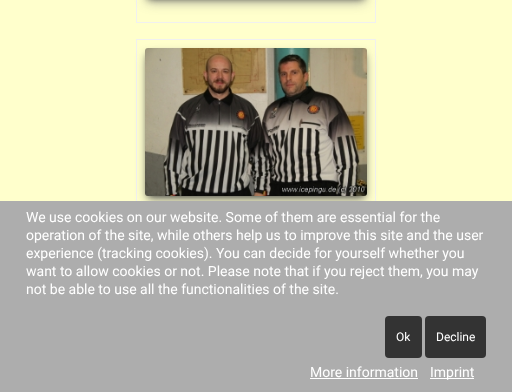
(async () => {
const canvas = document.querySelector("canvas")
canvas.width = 512
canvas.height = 392
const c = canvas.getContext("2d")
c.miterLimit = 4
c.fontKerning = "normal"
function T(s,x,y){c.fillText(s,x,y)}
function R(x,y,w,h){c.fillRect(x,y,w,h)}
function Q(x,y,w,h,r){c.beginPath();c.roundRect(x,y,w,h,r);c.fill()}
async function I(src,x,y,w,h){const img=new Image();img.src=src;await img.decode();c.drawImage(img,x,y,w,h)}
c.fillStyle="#ffc"
R(0,0,512,392)
c.strokeStyle="#f0f0f0"
c.strokeRect(136.5,-.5,239,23)
c.fillStyle="#32325d66"
c.filter="blur(6px)"
c.beginPath()
c.roundRect(147,-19,218,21,1)
c.fill()
c.filter="none"
c.fillStyle="#000000b3"
c.filter="blur(3.5px)"
c.beginPath()
c.rect(148,-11,216,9)
c.fill()
c.filter="none"
c.strokeRect(136.5,39.5,239,181)
c.fillStyle="#32325d66"
c.filter="blur(6px)"
c.beginPath()
c.roundRect(147,56,218,144,1)
c.fill()
c.filter="none"
c.fillStyle="#000000b3"
c.filter="blur(3.5px)"
c.beginPath()
c.rect(148,54,216,142)
c.fill()
c.filter="none"
await I("1.png",145,48,222,148)
c.fillStyle="#adadad"
R(0,201,512,191)
c.font="14px Roboto"
c.fillStyle="#fff"
T("We use cookies on our website. Some of them are essential for the",26,222)
T("operation of the site, while others help us to improve this site and the user",26,240)
T("experience (tracking cookies). You can decide for yourself whether you",26,258)
T("want to allow cookies or not. Please note that if you reject them, you may",26,276)
T("not be able to use all the functionalities of the site.",26,294)
c.fillStyle="#333"
Q(385,316,37,42,4)
c.font="12px Roboto"
c.fillStyle="#fff"
T("Ok",396,341)
c.fillStyle="#333"
Q(425,316,61,42,4)
c.fillStyle="#fff"
T("Decline",436,341)
c.font="14px Roboto"
T("More information",310,377)
R(310,378,108,1)
R(430,378,44,1)
T("Imprint",430,377)
})()
